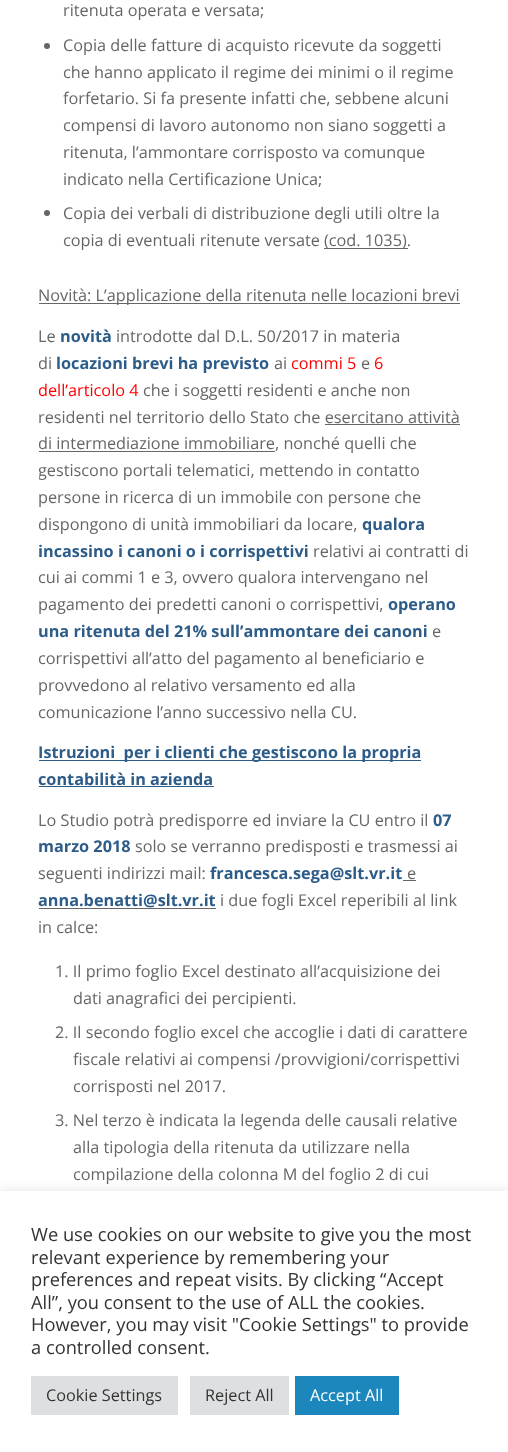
(async () => {
const canvas = document.querySelector("canvas")
canvas.width = 508
canvas.height = 1452
const c = canvas.getContext("2d")
c.miterLimit = 4
c.fontKerning = "normal"
function T(s,x,y){c.fillText(s,x,y)}
function R(x,y,w,h){c.fillRect(x,y,w,h)}
c.fillStyle="#fff"
R(0,0,508,1452)
c.font="16.25px Open Sans"
c.fillStyle="#666"
T("ritenuta operata e versata;",63,16)
c.beginPath()
c.arc(47,46,3,0,7)
c.fill()
T("Copia delle fatture di acquisto ricevute da soggetti",63,51)
T("che hanno applicato il regime dei minimi o il regime",63,78)
T("forfetario. Si fa presente infatti che, sebbene alcuni",63,104)
T("compensi di lavoro autonomo non siano soggetti a",63,131)
T("ritenuta, l’ammontare corrisposto va comunque",63,158)
T("indicato nella Certificazione Unica;",63,185)
c.beginPath()
c.arc(47,213,3,0,7)
c.fill()
T("Copia dei verbali di distribuzione degli utili oltre la",63,219)
T("copia di eventuali ritenute versate",63,246)
R(324,248,84,1)
T("(cod. 1035).",324,246)
R(39,303,421,1)
T("Novità: L’applicazione della ritenuta nelle locazioni brevi",38,301)
T("Le",38,342)
c.font="bold 16.25px Open Sans"
c.fillStyle="#2d5c88"
T("novità",60,342)
c.font="16.25px Open Sans"
c.fillStyle="#666"
T("introdotte dal D.L. 50/2017 in materia",116,342)
T("di",38,369)
c.font="bold 16.25px Open Sans"
c.fillStyle="#2d5c88"
T("locazioni brevi ha previsto",56,369)
c.font="16.25px Open Sans"
c.fillStyle="#666"
T("ai",274,369)
c.fillStyle="#f00"
T("commi 5",291,369)
c.fillStyle="#666"
T("e",361,369)
c.fillStyle="#f00"
T("6",374,369)
T("dell’articolo 4",38,396)
c.fillStyle="#666"
T("che i soggetti residenti e anche non",143,396)
T("residenti nel territorio dello Stato che esercitano attività",38,423)
R(39,451,236,1)
T("di intermediazione immobiliare, nonché quelli che",38,449)
R(325,424,135,1)
c.save()
c.beginPath()
c.rect(39,0,431,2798)
c.clip()
T("gestiscono portali telematici, mettendo in contatto",38,476)
c.restore()
T("persone in ricerca di un immobile con persone che",38,503)
T("dispongono di unità immobiliari da locare,",38,530)
c.font="bold 16.25px Open Sans"
c.fillStyle="#2d5c88"
T("qualora",362,530)
T("incassino i canoni o i corrispettivi",38,557)
c.font="16.25px Open Sans"
c.fillStyle="#666"
T("relativi ai contratti di",313,557)
T("cui ai commi 1 e 3, ovvero qualora intervengano nel",38,583)
T("pagamento dei predetti canoni o corrispettivi,",38,610)
c.font="bold 16.25px Open Sans"
c.fillStyle="#2d5c88"
T("operano",388,610)
T("una ritenuta del 21% sull’ammontare dei canoni",38,637)
c.font="16.25px Open Sans"
c.fillStyle="#666"
T("e",432,637)
T("corrispettivi all’atto del pagamento al beneficiario e",38,664)
T("provvedono al relativo versamento ed alla",38,691)
T("comunicazione l’anno successivo nella CU.",38,718)
c.fillStyle="#2d5c88"
R(39,760,382,1)
c.font="bold 16.25px Open Sans"
T("Istruzioni  per i clienti che gestiscono la propria",38,758)
T("contabilità in azienda",38,785)
R(39,786,175,1)
c.font="16.25px Open Sans"
c.fillStyle="#666"
T("Lo Studio potrà predisporre ed inviare la CU entro il",38,826)
c.font="bold 16.25px Open Sans"
c.fillStyle="#2d5c88"
T("07",433,826)
T("marzo 2018",38,852)
c.font="16.25px Open Sans"
c.fillStyle="#666"
T("solo se verranno predisposti e trasmessi ai",135,852)
T("seguenti indirizzi mail:",38,879)
c.font="bold 16.25px Open Sans"
c.fillStyle="#2d5c88"
T("francesca.sega@slt.vr.it",210,879)
c.font="16.25px Open Sans"
c.fillStyle="#666"
T("e",407,879)
R(403,880,13,1)
c.font="bold 16.25px Open Sans"
c.fillStyle="#2d5c88"
T("anna.benatti@slt.vr.it",38,906)
c.fillStyle="#666"
R(39,908,177,1)
c.font="16.25px Open Sans"
T("i due fogli Excel reperibili al link",220,906)
T("in calce:",38,933)
T("1. Il primo foglio Excel destinato all’acquisizione dei",55,977)
T("dati anagrafici dei percipienti.",73,1004)
T("2. Il secondo foglio excel che accoglie i dati di carattere",55,1038)
T("fiscale relativi ai compensi /provvigioni/corrispettivi",73,1065)
T("corrisposti nel 2017.",73,1092)
T("3. Nel terzo è indicata la legenda delle causali relative",55,1126)
T("alla tipologia della ritenuta da utilizzare nella",73,1153)
T("compilazione della colonna M del foglio 2 di cui",73,1180)
c.fillStyle="#acabab4d"
c.filter="blur(6px)"
c.beginPath()
c.rect(0,1190,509,261)
c.fill()
c.filter="none"
c.fillStyle="#fff"
R(0,1191,508,261)
c.font="18.3px Open Sans"
c.fillStyle="#333"
T("We use cookies on our website to give you the most",31,1241)
T("relevant experience by remembering your",31,1264)
T("preferences and repeat visits. By clicking “Accept",31,1286)
T("All”, you consent to the use of ALL the cookies.",31,1309)
T("However, you may visit \"Cookie Settings\" to provide",31,1331)
T("a controlled consent.",31,1354)
c.fillStyle="#dedfe0"
R(31,1376,147,39)
c.font="16.25px Open Sans"
c.fillStyle="#333"
T("Cookie Settings",46,1401)
c.fillStyle="#dedfe0"
R(190,1376,99,39)
c.fillStyle="#333"
T("Reject All",205,1401)
c.fillStyle="#1c87bc"
R(295,1376,104,39)
c.fillStyle="#fff"
T("Accept All",310,1401)
})()
